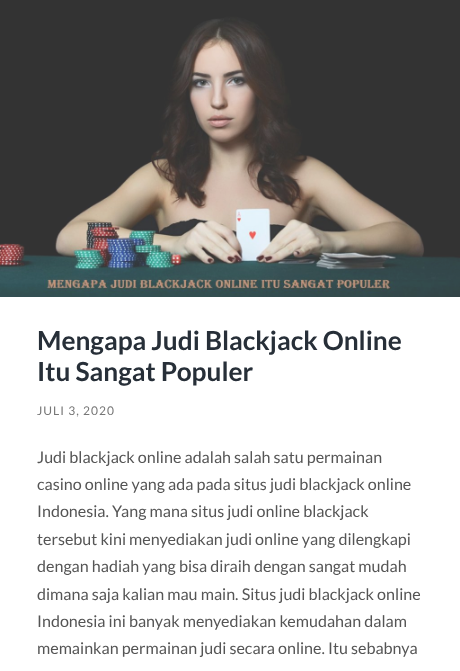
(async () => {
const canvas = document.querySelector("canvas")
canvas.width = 460
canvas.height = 671
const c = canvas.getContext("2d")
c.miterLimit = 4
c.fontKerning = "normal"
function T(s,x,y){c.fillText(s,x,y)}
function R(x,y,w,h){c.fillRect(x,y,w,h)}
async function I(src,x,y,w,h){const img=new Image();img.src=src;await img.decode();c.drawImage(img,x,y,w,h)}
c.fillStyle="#fff"
R(0,0,460,671)
await I("1.png",0,0,460,297)
c.font="bold 26.25px Lato"
c.fillStyle="#272f38"
T("Mengapa Judi Blackjack Online",37,350)
T("Itu Sangat Populer",37,381)
c.letterSpacing="1px"
c.font="12px Lato"
c.fillStyle="#767676"
T("JULI 3, 2020",37,415)
c.letterSpacing="0px"
c.font="16.1px Lato"
c.fillStyle="#555"
T("Judi blackjack online adalah salah satu permainan",37,463)
T("casino online yang ada pada situs judi blackjack online",37,490)
T("Indonesia. Yang mana situs judi online blackjack",37,517)
T("tersebut kini menyediakan judi online yang dilengkapi",37,545)
T("dengan hadiah yang bisa diraih dengan sangat mudah",37,572)
T("dimana saja kalian mau main. Situs judi blackjack online",37,600)
T("Indonesia ini banyak menyediakan kemudahan dalam",37,627)
T("memainkan permainan judi secara online. Itu sebabnya",37,654)
})()
